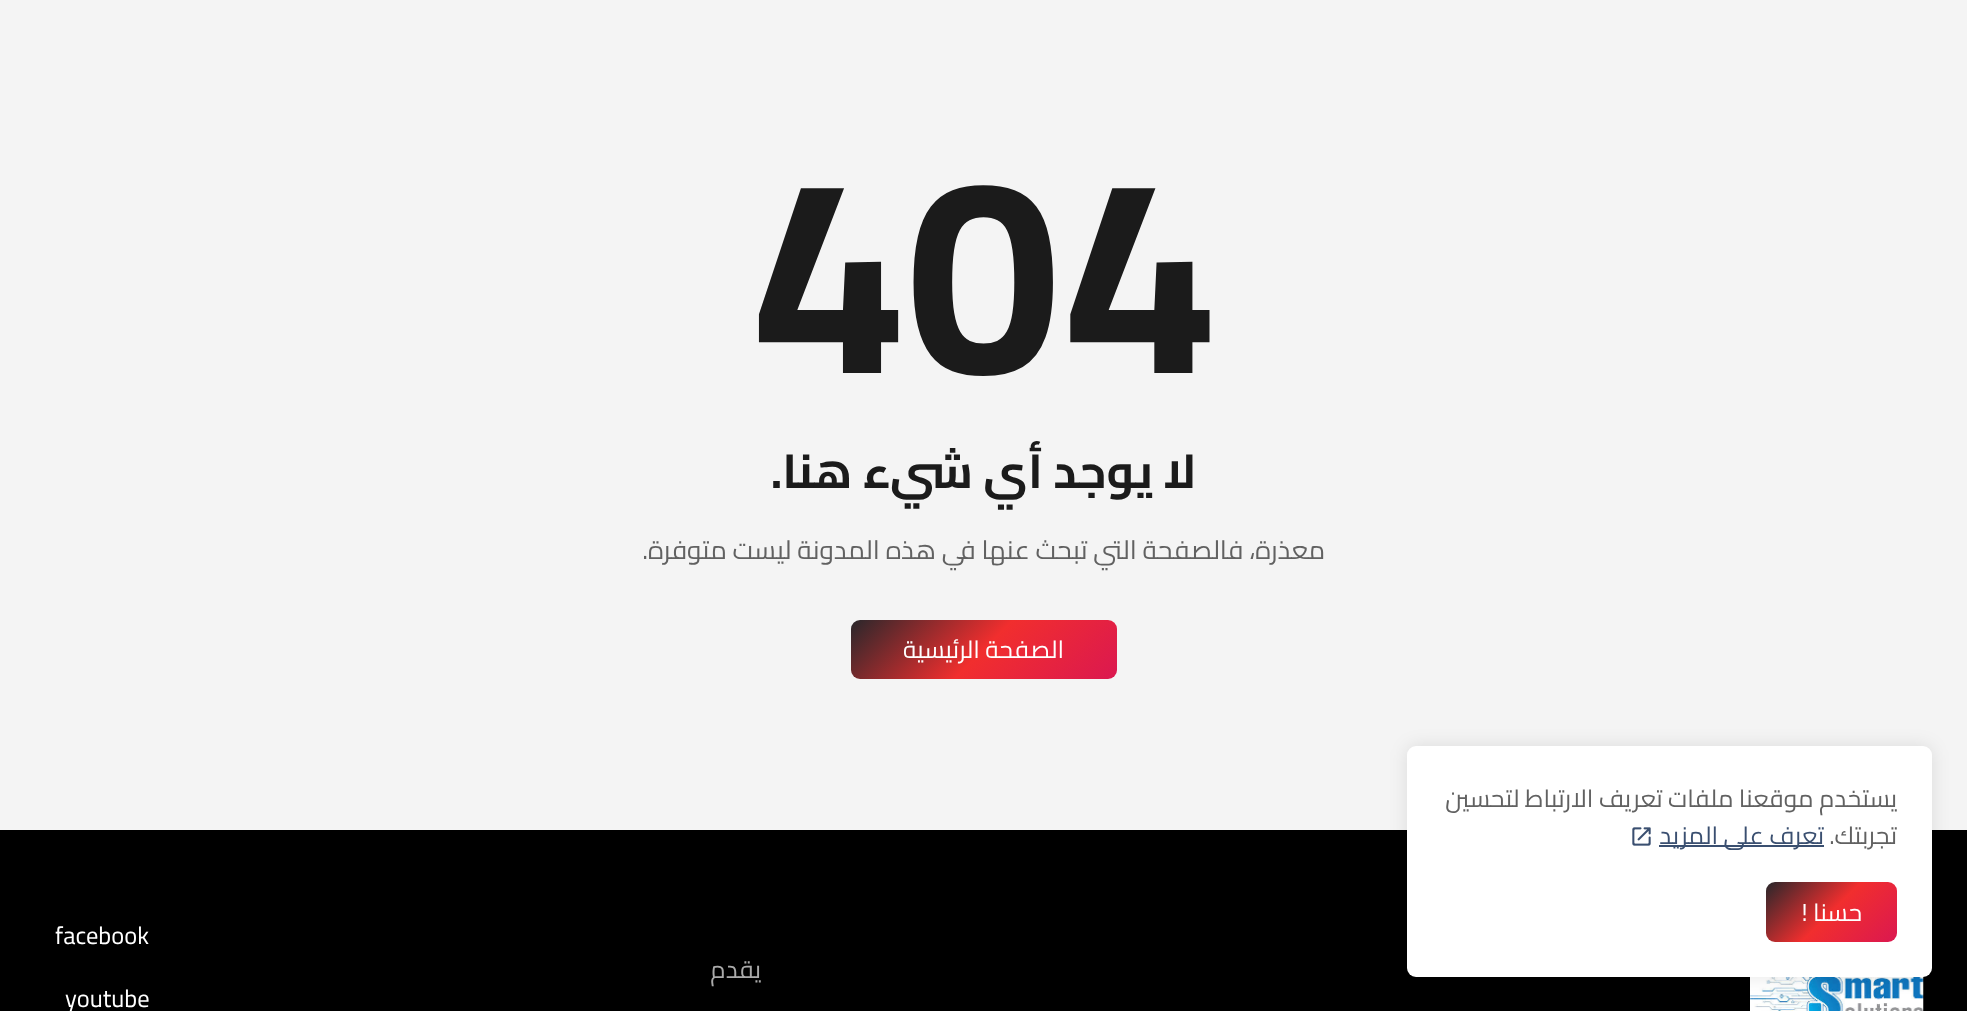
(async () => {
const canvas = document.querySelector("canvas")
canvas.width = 1967
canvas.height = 1011
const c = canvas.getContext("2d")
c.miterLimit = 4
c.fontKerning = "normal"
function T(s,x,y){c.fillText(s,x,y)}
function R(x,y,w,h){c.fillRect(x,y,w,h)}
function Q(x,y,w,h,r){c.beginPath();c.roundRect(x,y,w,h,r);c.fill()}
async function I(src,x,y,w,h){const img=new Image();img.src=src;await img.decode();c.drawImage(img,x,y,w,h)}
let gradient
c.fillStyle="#f4f4f4"
R(0,0,1967,1011)
c.font="bold 280px Cairo"
c.fillStyle="#1b1b1b"
T("404",750,373)
c.direction="rtl"
c.font="bold 47.25px Cairo"
T("لا يوجد أي شيء هنا.",1196,488)
c.font="26.25px Cairo"
c.fillStyle="#616161"
T("معذرة، فالصفحة التي تبحث عنها في هذه المدونة ليست متوفرة.",1325,559)
gradient = c.createLinearGradient(902,568,1065,731)
gradient.addColorStop(0,"#28272b")
gradient.addColorStop(.5,"#f12e2e")
gradient.addColorStop(1,"#db1850")
c.fillStyle = gradient
Q(851,620,266,59,9)
c.font="24.5px Cairo"
c.fillStyle="#fff"
T("الصفحة الرئيسية",1064,658)
c.fillStyle="#000"
R(0,830,1967,181)
await I("2.png",1750,976,174,35)
c.fillStyle="#0000001a"
c.filter="blur(9px)"
c.beginPath()
c.roundRect(1407,746,525,231,9)
c.fill()
c.filter="none"
c.fillStyle="#fff"
Q(1407,746,525,231,9)
c.fillStyle="#616161"
T("يستخدم موقعنا ملفات تعريف الارتباط لتحسين",1897,807)
T("تجربتك.",1897,844)
c.fillStyle="#3a4f70"
R(1659,845,165,2)
T("تعرف على المزيد",1824,844)
await I("1.png",1632,827,19,19)
gradient = c.createLinearGradient(1784,864,1879,959)
gradient.addColorStop(0,"#28272b")
gradient.addColorStop(.5,"#f12e2e")
gradient.addColorStop(1,"#db1850")
c.fillStyle = gradient
Q(1766,882,131,60,9)
c.fillStyle="#fff"
T("حسنا !",1862,921)
c.fillStyle="#aaa"
T("يقدم",761,978)
c.direction="ltr"
c.fillStyle="#fff"
T("facebook",55,944)
T("youtube",65,1007)
})()
